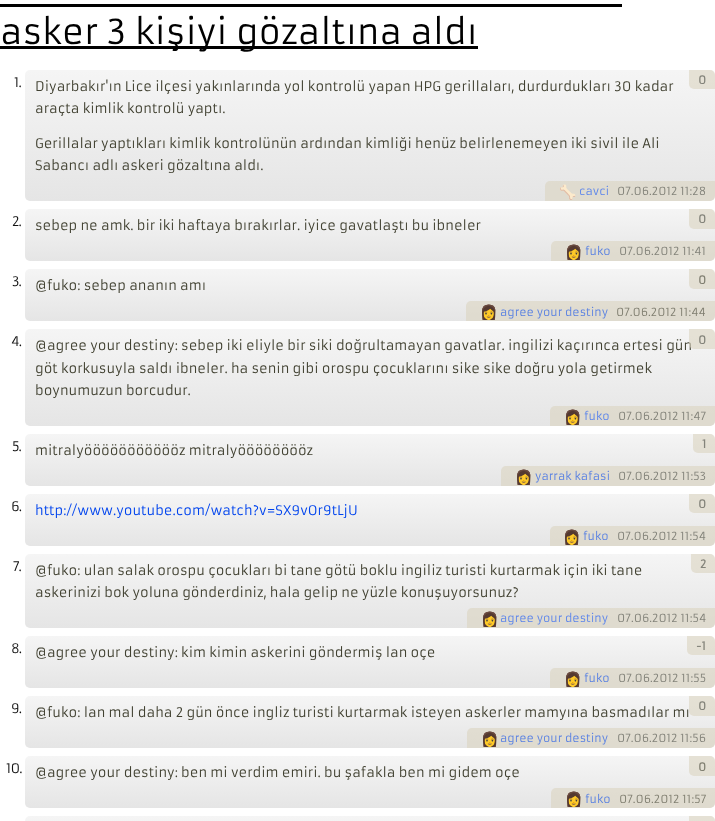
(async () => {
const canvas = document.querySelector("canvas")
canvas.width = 715
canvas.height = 821
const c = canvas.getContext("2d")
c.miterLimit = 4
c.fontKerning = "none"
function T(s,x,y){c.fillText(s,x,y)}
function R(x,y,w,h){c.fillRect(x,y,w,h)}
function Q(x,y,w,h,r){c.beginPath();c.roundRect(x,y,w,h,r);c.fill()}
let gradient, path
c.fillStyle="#fff"
R(0,0,715,821)
c.fillStyle="#000"
R(0,46,478,3)
c.font="33.75px Armata"
T("asker 3 kişiyi gözaltına aldı",0,44)
R(0,4,622,3)
gradient = c.createLinearGradient(370,70,370,201)
gradient.addColorStop(0,"#f5f5f5")
gradient.addColorStop(1,"#e5e5e5")
c.fillStyle = gradient
Q(25,70,690,131,5)
c.letterSpacing="-1px"
c.font="13px Armata"
c.fillStyle="#111"
T("1.",14,87)
c.fillStyle="#dad3c099"
c.beginPath()
c.roundRect(689,70,26,19,[0,5,0,5])
c.fill()
c.letterSpacing="0px"
c.font="bold 11px Armata"
c.fillStyle="#83837a"
T("0",698,84)
c.fillStyle="#dad3c099"
c.beginPath()
c.roundRect(545,181,170,20,[5,0,5,0])
c.fill()
c.font="14px Noto Color Emoji"
c.fillStyle="#5c85eb"
T("🦴",559,197)
c.font="11px Armata"
T("cavci",579,195)
c.fillStyle="#83837a"
T("07.06.2012 11:28",617,195)
c.font="13px Armata"
c.fillStyle="#414131"
T("Diyarbakır'ın Lice ilçesi yakınlarında yol kontrolü yapan HPG gerillaları, durdurdukları 30 kadar",35,91)
T("araçta kimlik kontrolü yaptı.",35,113)
T("Gerillalar yaptıkları kimlik kontrolünün ardından kimliği henüz belirlenemeyen iki sivil ile Ali",35,148)
T("Sabancı adlı askeri gözaltına aldı.",35,170)
gradient = c.createLinearGradient(370,209,370,261)
gradient.addColorStop(0,"#f5f5f5")
gradient.addColorStop(1,"#e5e5e5")
c.fillStyle = gradient
Q(25,209,690,52,5)
c.letterSpacing="-1px"
c.fillStyle="#111"
T("2.",12,226)
c.letterSpacing="0px"
c.fillStyle="#414131"
T("sebep ne amk. bir iki haftaya bırakırlar. iyice gavatlaştı bu ibneler",35,230)
c.fillStyle="#dad3c099"
c.beginPath()
c.roundRect(689,209,26,20,[0,5,0,5])
c.fill()
c.font="bold 11px Armata"
c.fillStyle="#83837a"
T("0",698,223)
c.fillStyle="#dad3c099"
c.beginPath()
c.roundRect(551,241,164,20,[5,0,5,0])
c.fill()
c.font="14px Noto Color Emoji"
c.fillStyle="#5981e2"
T("👩",565,257)
c.font="11px Armata"
T("fuko",585,255)
c.fillStyle="#83837a"
T("07.06.2012 11:41",619,255)
gradient = c.createLinearGradient(370,269,370,321)
gradient.addColorStop(0,"#f5f5f5")
gradient.addColorStop(1,"#e5e5e5")
c.fillStyle = gradient
Q(25,269,690,52,5)
c.letterSpacing="-1px"
c.font="13px Armata"
c.fillStyle="#111"
T("3.",12,286)
c.letterSpacing="0px"
c.fillStyle="#414131"
T("@fuko: sebep ananın amı",35,290)
c.fillStyle="#dad3c099"
c.beginPath()
c.roundRect(689,269,26,20,[0,5,0,5])
c.fill()
c.font="bold 11px Armata"
c.fillStyle="#807f71"
T("0",698,284)
c.fillStyle="#dad3c099"
c.beginPath()
c.roundRect(466,301,249,20,[5,0,5,0])
c.fill()
c.font="14px Noto Color Emoji"
c.fillStyle="#5981e2"
T("👩",480,317)
c.font="11px Armata"
T("agree your destiny",500,316)
c.fillStyle="#807f71"
T("07.06.2012 11:44",616,316)
gradient = c.createLinearGradient(370,329,370,426)
gradient.addColorStop(0,"#f5f5f5")
gradient.addColorStop(1,"#e5e5e5")
c.fillStyle = gradient
Q(25,329,690,97,5)
c.letterSpacing="-1px"
c.font="13px Armata"
c.fillStyle="#111"
T("4.",11,346)
c.letterSpacing="0px"
c.fillStyle="#414131"
T("@agree your destiny: sebep iki eliyle bir siki doğrultamayan gavatlar. ingilizi kaçırınca ertesi gün",35,350)
c.fillStyle="#dad3c099"
c.beginPath()
c.roundRect(689,329,26,20,[0,5,0,5])
c.fill()
c.font="bold 11px Armata"
c.fillStyle="#83837a"
T("0",698,344)
c.fillStyle="#dad3c099"
c.beginPath()
c.roundRect(550,406,165,20,[5,0,5,0])
c.fill()
c.font="14px Noto Color Emoji"
c.fillStyle="#5981e2"
T("👩",564,422)
c.font="11px Armata"
c.fillStyle="#5c85eb"
T("fuko",584,420)
c.fillStyle="#83837a"
T("07.06.2012 11:47",618,420)
c.font="13px Armata"
c.fillStyle="#414131"
T("göt korkusuyla saldı ibneler. ha senin gibi orospu çocuklarını sike sike doğru yola getirmek",35,373)
T("boynumuzun borcudur.",35,395)
gradient = c.createLinearGradient(370,434,370,486)
gradient.addColorStop(0,"#f5f5f5")
gradient.addColorStop(1,"#e5e5e5")
c.fillStyle = gradient
Q(25,434,690,52,5)
c.letterSpacing="-1px"
c.fillStyle="#111"
T("5.",12,451)
c.letterSpacing="0px"
c.fillStyle="#414131"
T("mitralyöööööööööööz mitralyööööööööz",35,455)
c.fillStyle="#dad3c099"
c.beginPath()
c.roundRect(693,434,22,19,[0,5,0,5])
c.fill()
c.font="bold 11px Armata"
c.fillStyle="#83837a"
T("1",702,448)
c.fillStyle="#dad3c099"
c.beginPath()
c.roundRect(501,466,214,20,[5,0,5,0])
c.fill()
c.font="14px Noto Color Emoji"
c.fillStyle="#5981e2"
T("👩",515,482)
c.font="11px Armata"
T("yarrak kafasi",535,480)
c.fillStyle="#83837a"
T("07.06.2012 11:53",618,480)
gradient = c.createLinearGradient(370,494,370,546)
gradient.addColorStop(0,"#f5f5f5")
gradient.addColorStop(1,"#e5e5e5")
c.fillStyle = gradient
Q(25,494,690,52,5)
c.letterSpacing="-1px"
c.font="13px Armata"
c.fillStyle="#111"
T("6.",11,511)
c.letterSpacing="0px"
c.fillStyle="#04e"
T("http://www.youtube.com/watch?v=SX9vOr9tLjU",35,515)
c.fillStyle="#dad3c099"
c.beginPath()
c.roundRect(689,494,26,19,[0,5,0,5])
c.fill()
c.font="bold 11px Armata"
c.fillStyle="#83837a"
T("0",698,508)
c.fillStyle="#dad3c099"
c.beginPath()
c.roundRect(550,526,165,20,[5,0,5,0])
c.fill()
c.font="14px Noto Color Emoji"
c.fillStyle="#5981e2"
T("👩",563,542)
c.font="11px Armata"
T("fuko",583,540)
c.fillStyle="#83837a"
T("07.06.2012 11:54",617,540)
gradient = c.createLinearGradient(370,554,370,628)
gradient.addColorStop(0,"#f5f5f5")
gradient.addColorStop(1,"#e5e5e5")
c.fillStyle = gradient
Q(25,554,690,74,5)
c.letterSpacing="-1px"
c.font="13px Armata"
c.fillStyle="#111"
T("7.",13,571)
c.fillStyle="#dad3c099"
c.beginPath()
c.roundRect(691,554,24,19,[0,5,0,5])
c.fill()
c.letterSpacing="0px"
c.font="bold 11px Armata"
c.fillStyle="#83837a"
T("2",700,568)
c.fillStyle="#dad3c099"
c.beginPath()
c.roundRect(467,608,248,20,[5,0,5,0])
c.fill()
c.font="14px Noto Color Emoji"
c.fillStyle="#5981e2"
T("👩",481,624)
c.font="11px Armata"
c.fillStyle="#5c85eb"
T("agree your destiny",500,622)
c.fillStyle="#83837a"
T("07",617,622)
T(".06.2012 11:54",631,622)
c.font="13px Armata"
c.fillStyle="#414131"
T("@fuko: ulan salak orospu çocukları bi tane götü boklu ingiliz turisti kurtarmak için iki tane",35,575)
T("askerinizi bok yoluna gönderdiniz, hala gelip ne yüzle konuşuyorsunuz?",35,597)
gradient = c.createLinearGradient(370,636,370,688)
gradient.addColorStop(0,"#f5f5f5")
gradient.addColorStop(1,"#e5e5e5")
c.fillStyle = gradient
Q(25,636,690,52,5)
c.letterSpacing="-1px"
c.fillStyle="#111"
T("8.",11,653)
c.letterSpacing="0px"
c.fillStyle="#414131"
T("@agree your destiny: kim kimin askerini göndermiş lan oçe",35,657)
c.fillStyle="#dad3c099"
c.beginPath()
c.roundRect(687,636,28,19,[0,5,0,5])
c.fill()
c.font="bold 11px Armata"
c.fillStyle="#83837a"
T("-1",696,650)
c.fillStyle="#dad3c099"
c.beginPath()
c.roundRect(550,668,165,20,[5,0,5,0])
c.fill()
c.font="14px Noto Color Emoji"
c.fillStyle="#5981e2"
T("👩",564,684)
c.font="11px Armata"
T("fuko",584,682)
c.fillStyle="#83837a"
T("07.06.2012 11:55",618,682)
gradient = c.createLinearGradient(370,696,370,748)
gradient.addColorStop(0,"#f5f5f5")
gradient.addColorStop(1,"#e5e5e5")
c.fillStyle = gradient
Q(25,696,690,52,5)
c.letterSpacing="-1px"
c.font="13px Armata"
c.fillStyle="#111"
T("9.",11,713)
c.fillStyle="#dad3c099"
c.beginPath()
c.roundRect(689,696,26,20,[0,5,0,5])
c.fill()
c.letterSpacing="0px"
c.font="bold 11px Armata"
c.fillStyle="#83837a"
T("0",698,710)
c.fillStyle="#dad3c099"
c.beginPath()
c.roundRect(467,728,248,20,[5,0,5,0])
c.fill()
c.font="14px Noto Color Emoji"
c.fillStyle="#5981e2"
T("👩",481,744)
c.font="11px Armata"
T("agree your destiny",500,742)
c.fillStyle="#83837a"
T("07.06.2012 11:56",617,742)
c.font="13px Armata"
c.fillStyle="#414131"
T("@fuko: lan mal daha 2 gün önce ingliz turisti kurtarmak isteyen askerler mamyına basmadılar mı",35,717)
gradient = c.createLinearGradient(370,756,370,808)
gradient.addColorStop(0,"#f5f5f5")
gradient.addColorStop(1,"#e5e5e5")
c.fillStyle = gradient
Q(25,756,690,52,5)
c.letterSpacing="-1px"
c.fillStyle="#111"
T("10.",6,773)
c.letterSpacing="0px"
c.fillStyle="#414131"
T("@agree your destiny: ben mi verdim emiri. bu şafakla ben mi gidem oçe",35,777)
c.fillStyle="#dad3c099"
c.beginPath()
c.roundRect(689,756,26,20,[0,5,0,5])
c.fill()
c.font="bold 11px Armata"
c.fillStyle="#807f71"
T("0",698,771)
c.fillStyle="#dad3c099"
c.beginPath()
c.roundRect(551,788,164,20,[5,0,5,0])
c.fill()
c.font="14px Noto Color Emoji"
c.fillStyle="#5981e2"
T("👩",565,804)
c.font="11px Armata"
T("fuko",585,803)
c.fillStyle="#807f71"
T("07.06.2012 11:57",619,803)
gradient = c.createLinearGradient(370,816,370,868)
gradient.addColorStop(0,"#f5f5f5")
gradient.addColorStop(1,"#e5e5e5")
c.fillStyle = gradient
Q(25,816,690,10,5)
c.fillStyle="#dad3c099"
path = new Path2D("M689 816h21c3 0 5 2 5 5v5h-21c-3 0-5-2-5-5z")
c.fill(path)
})()
